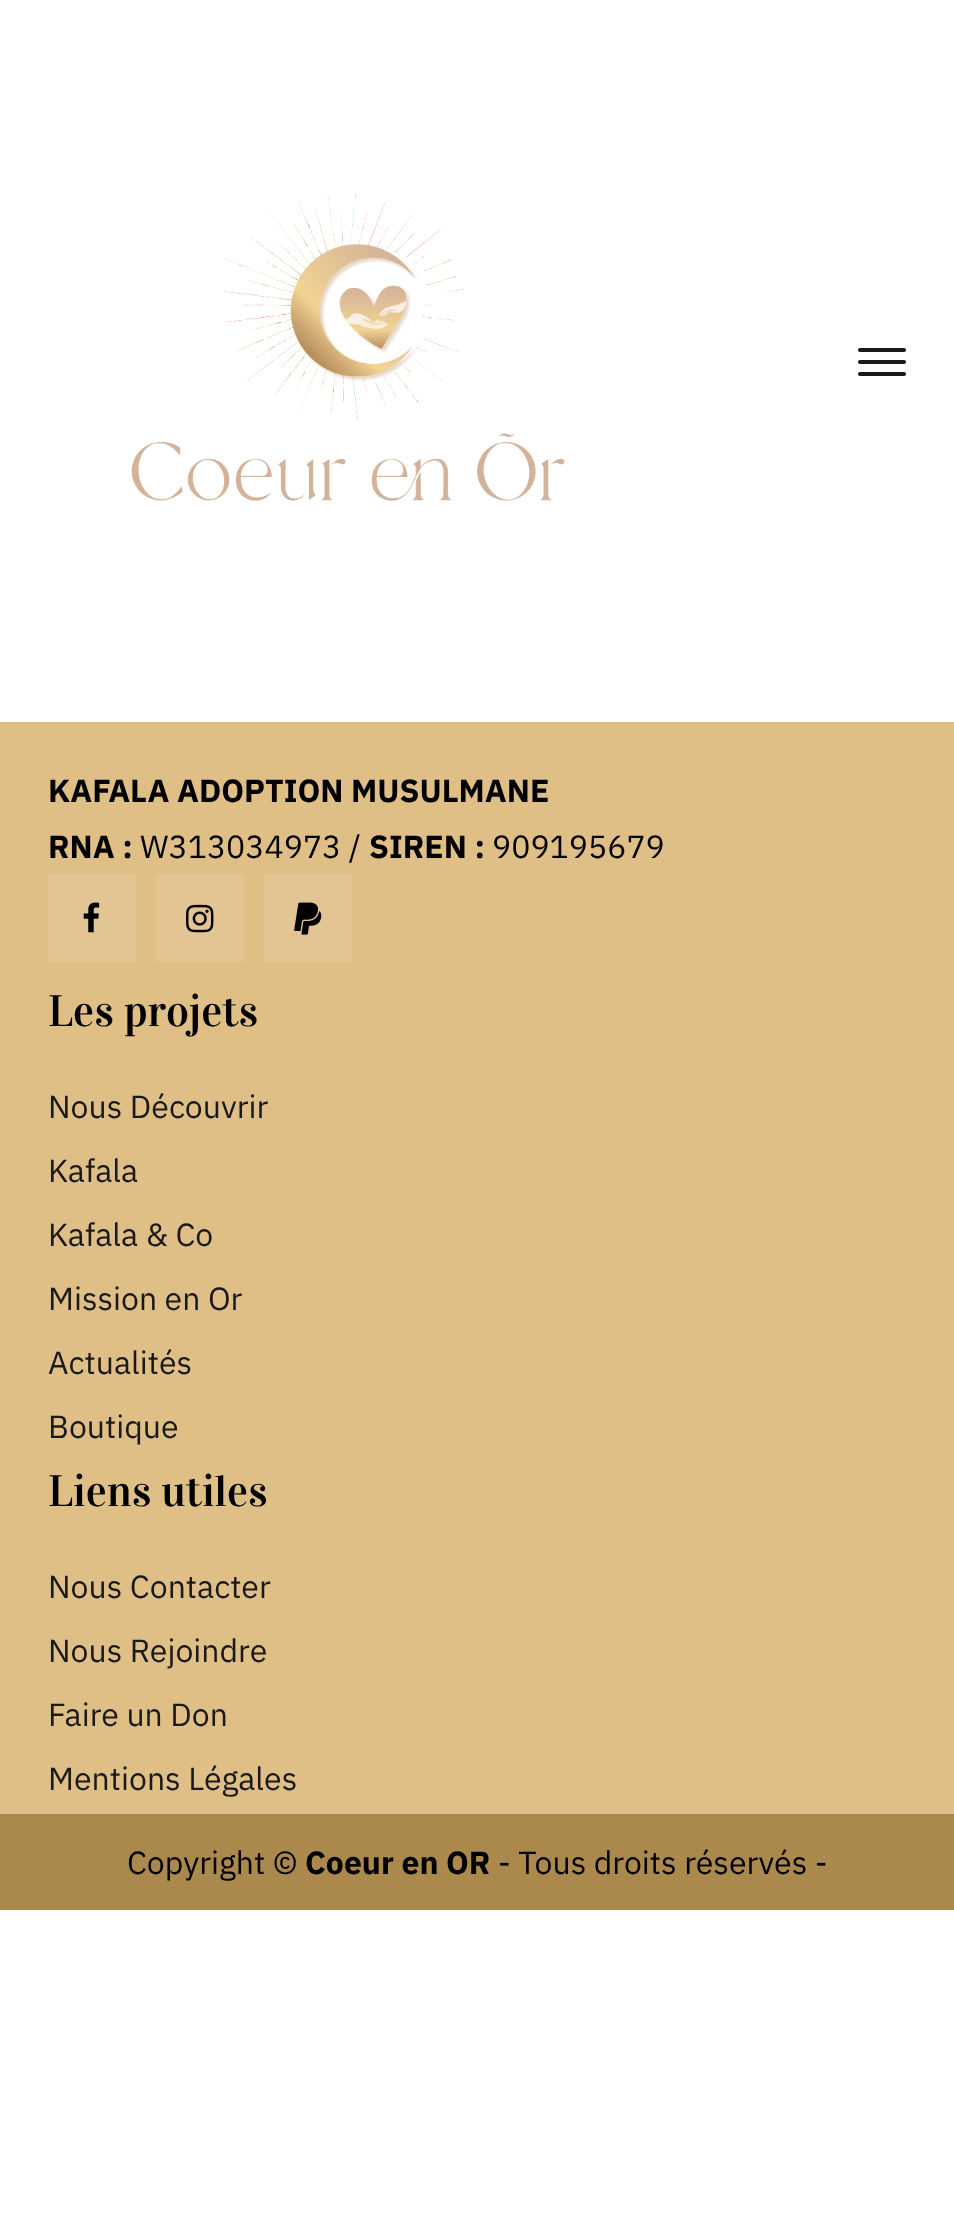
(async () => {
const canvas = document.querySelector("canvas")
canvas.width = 954
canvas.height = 2219
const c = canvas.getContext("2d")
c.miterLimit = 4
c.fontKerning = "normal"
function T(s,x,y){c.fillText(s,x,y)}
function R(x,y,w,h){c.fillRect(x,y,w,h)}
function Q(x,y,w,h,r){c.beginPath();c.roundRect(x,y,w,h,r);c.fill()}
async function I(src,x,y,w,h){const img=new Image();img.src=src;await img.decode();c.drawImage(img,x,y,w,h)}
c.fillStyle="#fff"
R(0,0,954,2219)
await I("1.png",131,193,434,308)
c.fillStyle="#191919"
Q(858,348,48,4,2)
Q(858,360,48,4,2)
Q(858,372,48,4,2)
c.fillStyle="#dfbf86"
R(0,722,954,1092)
c.font="bold 32px IBM Plex Sans"
c.fillStyle="#000"
T("KAFALA ADOPTION MUSULMANE",48,802)
T("RNA :",48,858)
c.font="32px IBM Plex Sans"
T("W313034973 /",140,858)
c.font="bold 32px IBM Plex Sans"
T("SIREN :",369,858)
c.font="32px IBM Plex Sans"
T("909195679",492,858)
c.fillStyle="#e2c592"
R(48,874,88,88)
await I("2.png",83,902,17,31)
R(156,874,88,88)
await I("3.png",186,904,28,29)
R(264,874,88,88)
await I("4.png",294,902,28,33)
c.font="44px Vidaloka"
c.fillStyle="#000"
T("Les projets",48,1026)
c.font="32px IBM Plex Sans"
c.fillStyle="#191919"
T("Nous Découvrir",48,1118)
T("Kafala",48,1182)
T("Kafala & Co",48,1246)
T("Mission en Or",48,1310)
T("Actualités",48,1374)
T("Boutique",48,1438)
c.font="44px Vidaloka"
c.fillStyle="#000"
T("Liens utiles",48,1506)
c.font="32px IBM Plex Sans"
c.fillStyle="#191919"
T("Nous Contacter",48,1598)
T("Nous Rejoindre",48,1662)
T("Faire un Don",48,1726)
T("Mentions Légales",48,1790)
c.fillStyle="#ab894c"
R(0,1814,954,96)
c.fillStyle="#000"
T("Copyright ©",127,1874)
c.font="bold 32px IBM Plex Sans"
T("Coeur en OR",305,1874)
c.font="32px IBM Plex Sans"
T("- Tous droits réservés -",498,1874)
})()
